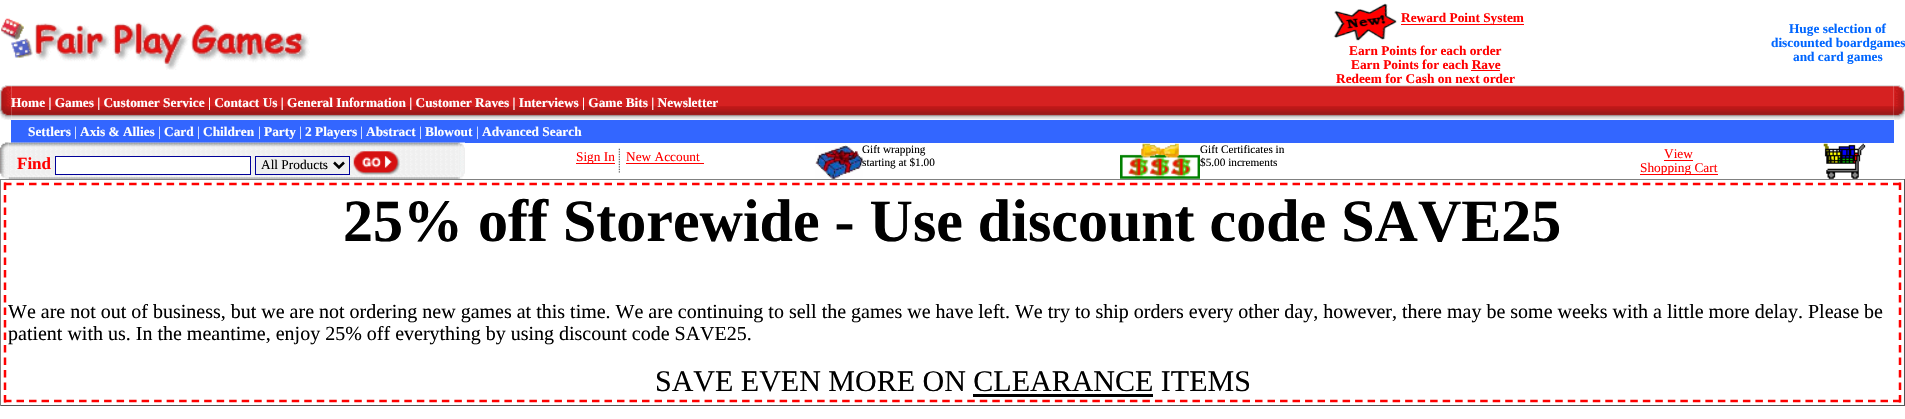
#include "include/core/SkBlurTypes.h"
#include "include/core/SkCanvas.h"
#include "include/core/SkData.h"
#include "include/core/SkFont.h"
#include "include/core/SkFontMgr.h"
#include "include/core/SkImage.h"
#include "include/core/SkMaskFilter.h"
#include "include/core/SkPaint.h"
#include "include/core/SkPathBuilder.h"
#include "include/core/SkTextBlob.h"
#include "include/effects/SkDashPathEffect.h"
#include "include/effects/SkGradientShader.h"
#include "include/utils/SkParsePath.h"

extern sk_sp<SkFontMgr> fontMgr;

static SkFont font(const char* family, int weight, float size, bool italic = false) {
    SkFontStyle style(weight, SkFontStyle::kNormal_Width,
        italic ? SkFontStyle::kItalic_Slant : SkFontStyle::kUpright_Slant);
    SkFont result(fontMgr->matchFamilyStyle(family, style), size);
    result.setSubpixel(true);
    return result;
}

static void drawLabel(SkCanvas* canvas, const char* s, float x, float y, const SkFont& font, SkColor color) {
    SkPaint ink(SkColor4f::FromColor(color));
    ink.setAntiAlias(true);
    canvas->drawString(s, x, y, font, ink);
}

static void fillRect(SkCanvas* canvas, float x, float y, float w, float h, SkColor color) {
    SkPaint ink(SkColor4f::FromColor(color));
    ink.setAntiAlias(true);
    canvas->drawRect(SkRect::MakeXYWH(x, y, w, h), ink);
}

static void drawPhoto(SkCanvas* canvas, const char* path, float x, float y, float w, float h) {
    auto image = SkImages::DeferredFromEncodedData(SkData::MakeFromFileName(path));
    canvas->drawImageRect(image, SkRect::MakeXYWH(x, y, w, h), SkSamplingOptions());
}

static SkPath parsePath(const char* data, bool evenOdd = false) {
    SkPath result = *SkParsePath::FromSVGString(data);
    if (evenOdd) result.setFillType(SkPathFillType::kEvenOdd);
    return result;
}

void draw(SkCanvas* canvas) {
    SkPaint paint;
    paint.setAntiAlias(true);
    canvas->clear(0xFFFFFFFF);
    drawPhoto(canvas, "assets/img1.png", 1, 18, 309, 52);
    drawPhoto(canvas, "assets/img2.png", 1333, 3, 64, 38);
    fillRect(canvas, 1401, 24, 123, 1, 0xFFFF0000);
    SkFont font1 = font("Liberation Serif", 700, 13.33f);
    drawLabel(canvas, "Reward Point System", 1401, 22, font1, 0xFFFF0000);
    drawLabel(canvas, "Earn Points for each order", 1349, 55, font1, 0xFFFF0000);
    drawLabel(canvas, "Earn Points for each Rave", 1351, 69, font1, 0xFFFF0000);
    fillRect(canvas, 1471, 70, 29, 1, 0xFFFF0000);
    drawLabel(canvas, "Redeem for Cash on next order", 1336, 83, font1, 0xFFFF0000);
    drawLabel(canvas, "Huge selection of", 1789, 33, font1, 0xFF0066FF);
    drawLabel(canvas, "discounted boardgames", 1771, 47, font1, 0xFF0066FF);
    drawLabel(canvas, "and card games", 1793, 61, font1, 0xFF0066FF);
    drawPhoto(canvas, "assets/img4.png", 11, 85, 1883, 35);
    drawPhoto(canvas, "assets/img3.png", 0, 85, 12, 35);
    drawLabel(canvas, "Home | Games | Customer Service | Contact Us | General Information | Customer Raves | Interviews | Game Bits | Newsletter", 11, 107, font1, 0xFFFFFFFF);
    drawPhoto(canvas, "assets/img5.png", 1893, 85, 12, 35);
    fillRect(canvas, 11, 120, 1883, 23, 0xFF3366FF);
    drawLabel(canvas, "Settlers", 28, 136, font1, 0xFFFFFFFF);
    SkFont font2 = font("Liberation Serif", 400, 13.33f);
    drawLabel(canvas, "|", 74, 136, font2, 0xFFFFFFFF);
    drawLabel(canvas, "Axis & Allies", 80, 136, font1, 0xFFFFFFFF);
    drawLabel(canvas, "|", 158, 136, font2, 0xFFFFFFFF);
    drawLabel(canvas, "Card", 164, 136, font1, 0xFFFFFFFF);
    drawLabel(canvas, "|", 197, 136, font2, 0xFFFFFFFF);
    drawLabel(canvas, "Children", 203, 136, font1, 0xFFFFFFFF);
    drawLabel(canvas, "|", 258, 136, font2, 0xFFFFFFFF);
    drawLabel(canvas, "Party", 264, 136, font1, 0xFFFFFFFF);
    drawLabel(canvas, "|", 299, 136, font2, 0xFFFFFFFF);
    drawLabel(canvas, "2 Players", 305, 136, font1, 0xFFFFFFFF);
    drawLabel(canvas, "|", 360, 136, font2, 0xFFFFFFFF);
    drawLabel(canvas, "Abstract", 366, 136, font1, 0xFFFFFFFF);
    drawLabel(canvas, "|", 419, 136, font2, 0xFFFFFFFF);
    drawLabel(canvas, "Blowout", 425, 136, font1, 0xFFFFFFFF);
    drawLabel(canvas, "|", 476, 136, font2, 0xFFFFFFFF);
    drawLabel(canvas, "Advanced Search", 482, 136, font1, 0xFFFFFFFF);
    drawPhoto(canvas, "assets/img6.png", 0, 142, 9, 37);
    drawPhoto(canvas, "assets/img7.png", 8, 142, 451, 37);
    SkFont font3 = font("Liberation Serif", 700, 17);
    drawLabel(canvas, "Find", 17, 169, font3, 0xFFFF0000);
    paint.setColor(0xFFFFFFFF);
    canvas->drawRect(SkRect::MakeXYWH(55.5f, 156.5f, 195, 18), paint);
    paint.setStroke(true);
    paint.setStrokeWidth(1);
    paint.setColor(0xFF000099);
    canvas->drawRect(SkRect::MakeXYWH(55.5f, 156.5f, 195, 18), paint);
    fillRect(canvas, 256, 157, 92, 17, 0xFFEFEFEF);
    canvas->drawRect(SkRect::MakeXYWH(255.5f, 156.5f, 94, 18), paint);
    paint.setStrokeWidth(2.5f);
    paint.setColor(0xFF000000);
    canvas->drawPath(parsePath("M334 162.5L339 167.5L344 162.5"), paint);
    drawLabel(canvas, "All Products", 261, 169, font2, 0xFF000000);
    drawPhoto(canvas, "assets/img8.png", 353, 151, 47, 24);
    drawPhoto(canvas, "assets/img9.png", 458, 142, 7, 37);
    fillRect(canvas, 576, 163, 39, 1, 0xFFFF0000);
    drawLabel(canvas, "Sign In", 576, 161, font2, 0xFFFF0000);
    drawPhoto(canvas, "assets/img10.png", 618, 148, 2, 25);
    drawLabel(canvas, "New Account", 626, 161, font2, 0xFFFF0000);
    fillRect(canvas, 626, 163, 78, 1, 0xFFFF0000);
    drawPhoto(canvas, "assets/img11.png", 815, 145, 48, 34);
    SkFont font4 = font("Liberation Serif", 400, 11.25f);
    drawLabel(canvas, "Gift wrapping", 862, 153, font4, 0xFF000000);
    drawLabel(canvas, "starting at $1.00", 862, 166, font4, 0xFF000000);
    drawPhoto(canvas, "assets/img12.png", 1120, 143, 80, 36);
    drawLabel(canvas, "Gift Certificates in", 1200, 153, font4, 0xFF000000);
    drawLabel(canvas, "$5.00 increments", 1200, 166, font4, 0xFF000000);
    drawLabel(canvas, "View", 1664, 158, font2, 0xFFFF0000);
    fillRect(canvas, 1664, 160, 29, 1, 0xFFFF0000);
    fillRect(canvas, 1640, 174, 78, 1, 0xFFFF0000);
    drawLabel(canvas, "Shopping Cart", 1640, 172, font2, 0xFFFF0000);
    drawPhoto(canvas, "assets/img13.png", 1823, 143, 43, 36);
    fillRect(canvas, 0, 179, 1905, 1, 0xFF808080);
    fillRect(canvas, 1904, 179, 1, 227, 0xFF555555);
    fillRect(canvas, 0, 405, 1905, 1, 0xFF555555);
    fillRect(canvas, 0, 179, 1, 227, 0xFF808080);
    paint.setColor(0xFFFF0000);
    paint.setPathEffect(SkDashPathEffect::Make({{7.5f, 5.01f}}, 0));
    canvas->drawPath(parsePath("M4 184H1901"), paint);
    paint.setPathEffect(nullptr);
    paint.setPathEffect(SkDashPathEffect::Make({{7.5f, 5}}, 0));
    canvas->drawPath(parsePath("M1900 182.5V402.5"), paint);
    paint.setPathEffect(nullptr);
    paint.setPathEffect(SkDashPathEffect::Make({{7.5f, 5.01f}}, 0));
    canvas->drawPath(parsePath("M4 401H1901"), paint);
    paint.setPathEffect(nullptr);
    paint.setPathEffect(SkDashPathEffect::Make({{7.5f, 5}}, 0));
    canvas->drawPath(parsePath("M5 182.5V402.5"), paint);
    paint.setPathEffect(nullptr);
    SkFont font5 = font("Liberation Serif", 700, 60);
    drawLabel(canvas, "25% off Storewide - Use discount code SAVE25", 343, 241, font5, 0xFF000000);
    SkFont font6 = font("Liberation Serif", 400, 20);
    drawLabel(canvas, "We are not out of business, but we are not ordering new games at this time. We are continuing to sell the games we have left. We try to ship orders every other day, however, there may be some weeks with a little more delay. Please be", 8, 318, font6, 0xFF000000);
    drawLabel(canvas, "patient with us. In the meantime, enjoy 25% off everything by using discount code SAVE25.", 8, 340, font6, 0xFF000000);
    SkFont font7 = font("Liberation Serif", 400, 30);
    drawLabel(canvas, "SAVE EVEN MORE ON CLEARANCE ITEMS", 655, 391, font7, 0xFF000000);
    fillRect(canvas, 973, 394, 180, 3, 0xFF000000);
}
